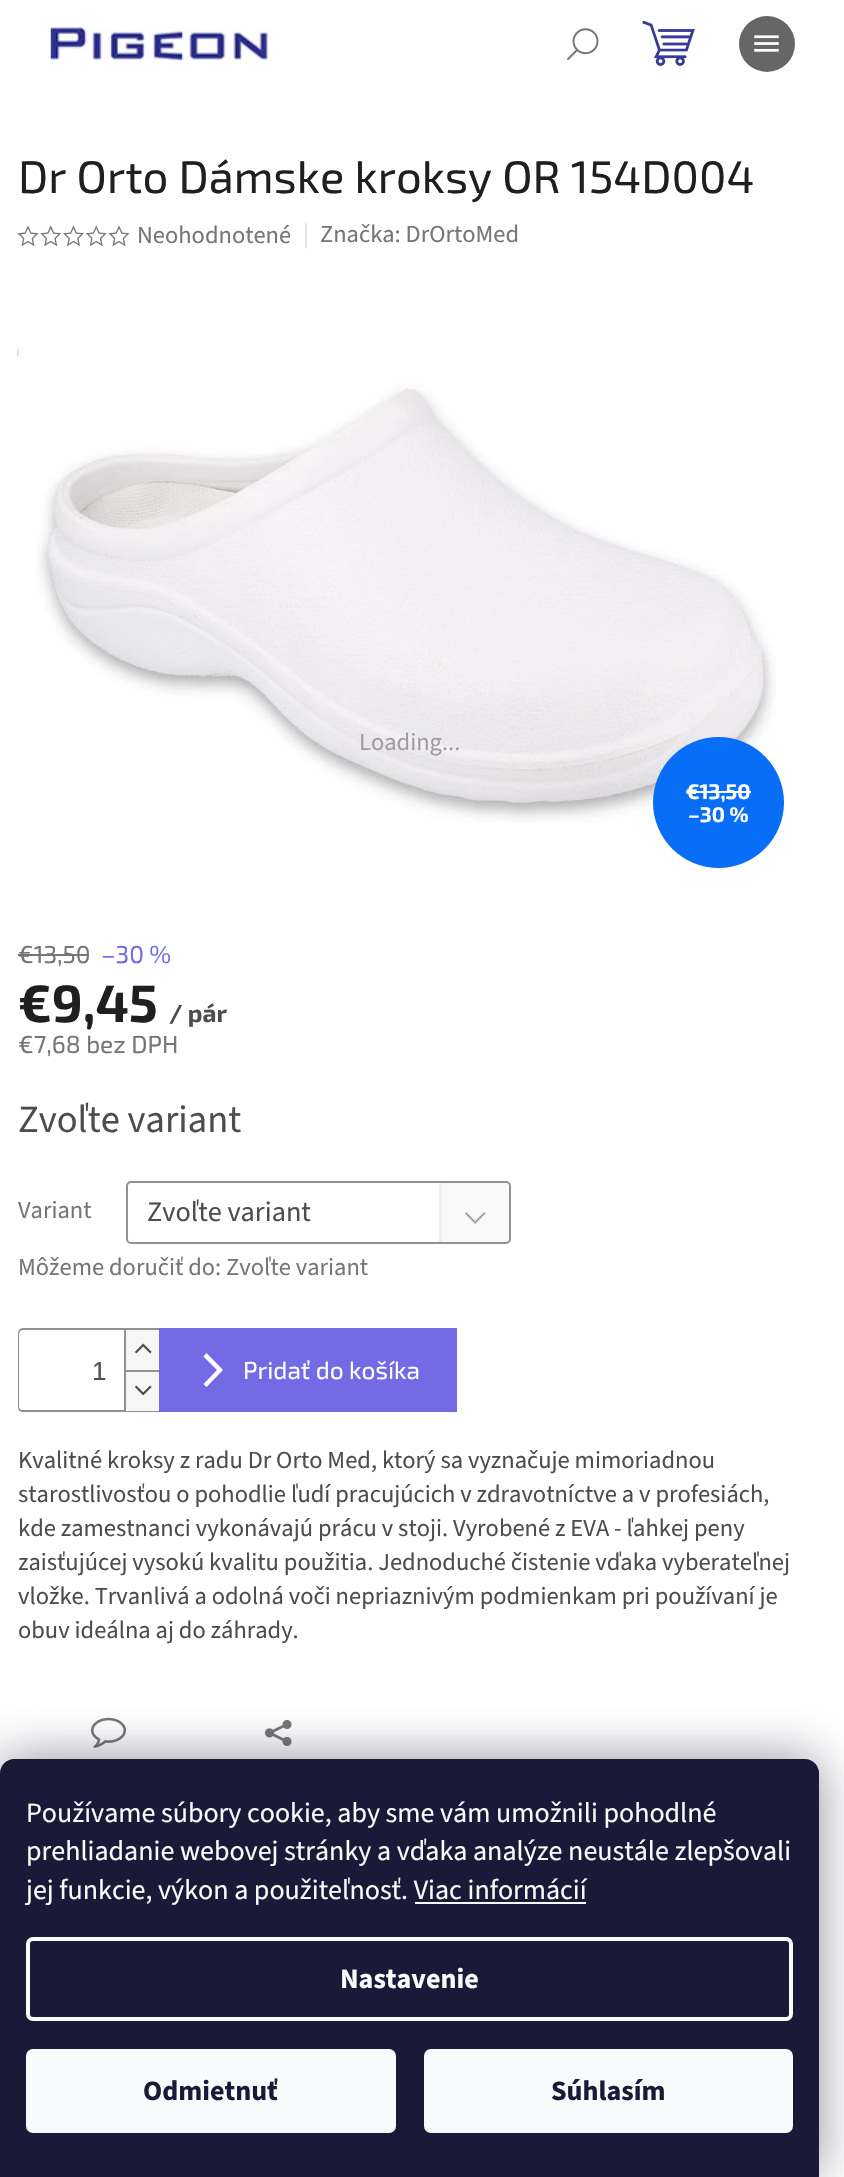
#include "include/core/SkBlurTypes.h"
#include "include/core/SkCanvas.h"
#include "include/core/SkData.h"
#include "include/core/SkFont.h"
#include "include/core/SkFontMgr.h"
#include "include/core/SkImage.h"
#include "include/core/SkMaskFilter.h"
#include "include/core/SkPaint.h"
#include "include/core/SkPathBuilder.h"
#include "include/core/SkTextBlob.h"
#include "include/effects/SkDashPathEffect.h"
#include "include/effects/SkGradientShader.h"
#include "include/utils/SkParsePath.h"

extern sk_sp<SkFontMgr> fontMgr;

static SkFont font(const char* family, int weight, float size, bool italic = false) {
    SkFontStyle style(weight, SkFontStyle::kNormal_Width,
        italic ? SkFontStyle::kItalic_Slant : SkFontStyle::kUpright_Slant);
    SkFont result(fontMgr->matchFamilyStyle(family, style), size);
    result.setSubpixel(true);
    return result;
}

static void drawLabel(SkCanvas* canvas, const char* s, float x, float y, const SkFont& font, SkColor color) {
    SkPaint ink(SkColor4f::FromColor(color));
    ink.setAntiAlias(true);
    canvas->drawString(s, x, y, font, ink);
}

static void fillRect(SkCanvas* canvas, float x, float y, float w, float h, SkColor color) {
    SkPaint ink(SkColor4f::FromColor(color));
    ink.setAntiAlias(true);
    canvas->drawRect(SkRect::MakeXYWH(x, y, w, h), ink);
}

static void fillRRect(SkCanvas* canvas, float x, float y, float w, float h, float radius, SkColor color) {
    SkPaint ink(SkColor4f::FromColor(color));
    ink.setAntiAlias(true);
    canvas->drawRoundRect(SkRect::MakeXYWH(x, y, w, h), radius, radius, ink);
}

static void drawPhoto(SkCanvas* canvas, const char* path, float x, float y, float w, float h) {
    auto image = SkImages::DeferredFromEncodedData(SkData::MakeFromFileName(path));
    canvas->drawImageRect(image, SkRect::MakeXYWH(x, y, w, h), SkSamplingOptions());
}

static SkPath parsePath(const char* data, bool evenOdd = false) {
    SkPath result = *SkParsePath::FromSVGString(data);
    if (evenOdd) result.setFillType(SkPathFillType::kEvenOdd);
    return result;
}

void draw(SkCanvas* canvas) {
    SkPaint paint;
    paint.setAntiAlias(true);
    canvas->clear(0xFFFFFFFF);
    drawPhoto(canvas, "assets/img1.png", 567, 28, 32, 32);
    paint.setColor(0xFF666666);
    canvas->drawCircle(767, 44, 28, paint);
    drawPhoto(canvas, "assets/img2.png", 754, 35, 25, 17);
    drawPhoto(canvas, "assets/img3.png", 50, 27, 219, 34);
    drawPhoto(canvas, "assets/img4.png", 642, 20, 53, 46);
    SkFont font1 = font("Exo 2", 400, 45.5f);
    drawLabel(canvas, "Dr Orto Dámske kroksy OR 154D004", 18, 193, font1, 0xFF1F1F1F);
    drawPhoto(canvas, "assets/img5.png", 17, 225, 22, 22);
    drawPhoto(canvas, "assets/img6.png", 40, 225, 21, 22);
    drawPhoto(canvas, "assets/img7.png", 63, 225, 21, 22);
    drawPhoto(canvas, "assets/img8.png", 86, 225, 21, 22);
    drawPhoto(canvas, "assets/img5.png", 108, 225, 22, 22);
    SkFont font2 = font("Source Sans 3", 400, 24.5f);
    drawLabel(canvas, "Neohodnotené", 137, 243, font2, 0xFF767676);
    drawLabel(canvas, "|", 303, 242, font2, 0xFFDADADA);
    drawLabel(canvas, "Značka: DrOrtoMed", 320, 242, font2, 0xFF767676);
    drawPhoto(canvas, "assets/img9.png", 17, 347, 759, 476);
    drawLabel(canvas, "Loading...", 359, 750, font2, 0xFF9E9C9E);
    paint.setColor(0xFF086DF7);
    canvas->drawCircle(718.5f, 802.5f, 65.5f, paint);
    SkFont font3 = font("Exo 2", 700, 21);
    drawLabel(canvas, "€13,50", 686, 799, font3, 0xFFFFFFFF);
    fillRect(canvas, 686, 791, 65, 2, 0xFFFFFFFF);
    drawLabel(canvas, "–30 %", 688, 822, font3, 0xFFFFFFFF);
    SkFont font4 = font("Exo 2", 400, 24.5f);
    drawLabel(canvas, "€13,50", 18, 963, font4, 0xFF767676);
    fillRect(canvas, 18, 954, 71, 2, 0xFF767676);
    drawLabel(canvas, "–30 %", 101, 963, font4, 0xFF736BE6);
    SkFont font5 = font("Exo 2", 700, 52.5f);
    drawLabel(canvas, "€9,45", 18, 1022, font5, 0xFF1F1F1F);
    SkFont font6 = font("Exo 2", 700, 24.5f);
    drawLabel(canvas, "/ pár", 169, 1022, font6, 0xFF4D4D4D);
    drawLabel(canvas, "€7,68 bez DPH", 18, 1053, font4, 0xFF767676);
    SkFont font7 = font("Source Sans 3", 400, 38.5f);
    drawLabel(canvas, "Zvoľte variant", 18, 1132, font7, 0xFF4D4D4D);
    drawLabel(canvas, "Variant", 18, 1218, font2, 0xFF767676);
    drawPhoto(canvas, "assets/img10.png", 439, 1181, 70, 63);
    paint.setStroke(true);
    paint.setStrokeWidth(2);
    paint.setColor(0xFF919191);
    canvas->drawRoundRect(SkRect::MakeXYWH(127, 1182, 383, 61), 4, 4, paint);
    SkFont font8 = font("Source Sans 3", 400, 28.25f);
    drawLabel(canvas, "Zvoľte variant", 147, 1221, font8, 0xFF4D4D4D);
    drawLabel(canvas, "Môžeme doručiť do: Zvoľte variant", 18, 1275, font2, 0xFF767676);
    paint.setStroke(false);
    canvas->drawPath(parsePath("M23 1328H159V1412H23C20 1412 18 1410 18 1407V1334C18 1331 20 1328 23 1328ZM23 1330H159V1410H23C21 1410 19 1409 19 1407V1334C19 1332 21 1330 23 1330Z", true), paint);
    SkFont font9 = font("Liberation Sans", 400, 26);
    drawLabel(canvas, "1", 92, 1380, font9, 0xFF4D4D4D);
    fillRect(canvas, 126, 1330, 33, 40, 0xFFF6F6F6);
    fillRect(canvas, 124, 1330, 2, 40, 0xFF919191);
    drawPhoto(canvas, "assets/img11.png", 134, 1343, 18, 11);
    fillRect(canvas, 126, 1372, 33, 39, 0xFFF6F6F6);
    fillRect(canvas, 124, 1370, 35, 2, 0xFF919191);
    fillRect(canvas, 124, 1370, 2, 41, 0xFF919191);
    drawPhoto(canvas, "assets/img12.png", 135, 1385, 17, 11);
    fillRect(canvas, 159, 1328, 298, 84, 0xFF736BE6);
    paint.setColor(0xFFFFFFFF);
    canvas->drawPath(parsePath("M206.5 1387L203.5 1384L217 1370L203.5 1356.5L206.5 1353L223 1370Z"), paint);
    drawLabel(canvas, "Pridať do košíka", 243, 1379, font4, 0xFFFFFFFF);
    drawLabel(canvas, "Kvalitné kroksy z radu Dr Orto Med, ktorý sa vyznačuje mimoriadnou", 18, 1468, font2, 0xFF4D4D4D);
    drawLabel(canvas, "starostlivosťou o pohodlie ľudí pracujúcich v zdravotníctve a v profesiách,", 18, 1502, font2, 0xFF4D4D4D);
    drawLabel(canvas, "kde zamestnanci vykonávajú prácu v stoji. Vyrobené z EVA - ľahkej peny", 18, 1536, font2, 0xFF4D4D4D);
    drawLabel(canvas, "zaisťujúcej vysokú kvalitu použitia. Jednoduché čistenie vďaka vyberateľnej", 18, 1570, font2, 0xFF4D4D4D);
    drawLabel(canvas, "vložke. Trvanlivá a odolná voči nepriaznivým podmienkam pri používaní je", 18, 1604, font2, 0xFF4D4D4D);
    drawLabel(canvas, "obuv ideálna aj do záhrady.", 18, 1638, font2, 0xFF4D4D4D);
    drawPhoto(canvas, "assets/img13.png", 91, 1717, 35, 31);
    drawPhoto(canvas, "assets/img14.png", 265, 1720, 27, 26);
    paint.setColor(0x801B1939);
    paint.setMaskFilter(SkMaskFilter::MakeBlur(kNormal_SkBlurStyle, 26));
    canvas->drawRoundRect(SkRect::MakeXYWH(0, 1759, 819, 418), 14, 14, paint);
    paint.setMaskFilter(nullptr);
    paint.setColor(0xFF1A1937);
    canvas->drawPath(parsePath("M14 1759H805C812.5 1759 819 1765.5 819 1773V2177H0V1773C0 1765.5 6.5 1759 14 1759Z"), paint);
    SkFont font10 = font("Source Sans 3", 400, 28);
    drawLabel(canvas, "Používame súbory cookie, aby sme vám umožnili pohodlné", 26, 1822, font10, 0xFFF8FAFB);
    drawLabel(canvas, "prehliadanie webovej stránky a vďaka analýze neustále zlepšovali", 26, 1860, font10, 0xFFF8FAFB);
    drawLabel(canvas, "jej funkcie, výkon a použiteľnosť. Viac informácií", 26, 1899, font10, 0xFFF8FAFB);
    fillRect(canvas, 415, 1902, 171, 2, 0xFFF8FAFB);
    paint.setStroke(true);
    paint.setStrokeWidth(4);
    paint.setColor(0xFFF8FAFB);
    canvas->drawRoundRect(SkRect::MakeXYWH(28, 1939, 763, 80), 5, 5, paint);
    SkFont font11 = font("Source Sans 3", 700, 28);
    drawLabel(canvas, "Nastavenie", 340, 1988, font11, 0xFFF8FAFB);
    fillRRect(canvas, 26, 2049, 370, 84, 7, 0xFFF8FAFB);
    drawLabel(canvas, "Odmietnuť", 143, 2100, font11, 0xFF1A1937);
    fillRRect(canvas, 424, 2049, 369, 84, 7, 0xFFF8FAFB);
    drawLabel(canvas, "Súhlasím", 551, 2100, font11, 0xFF1A1937);
}
